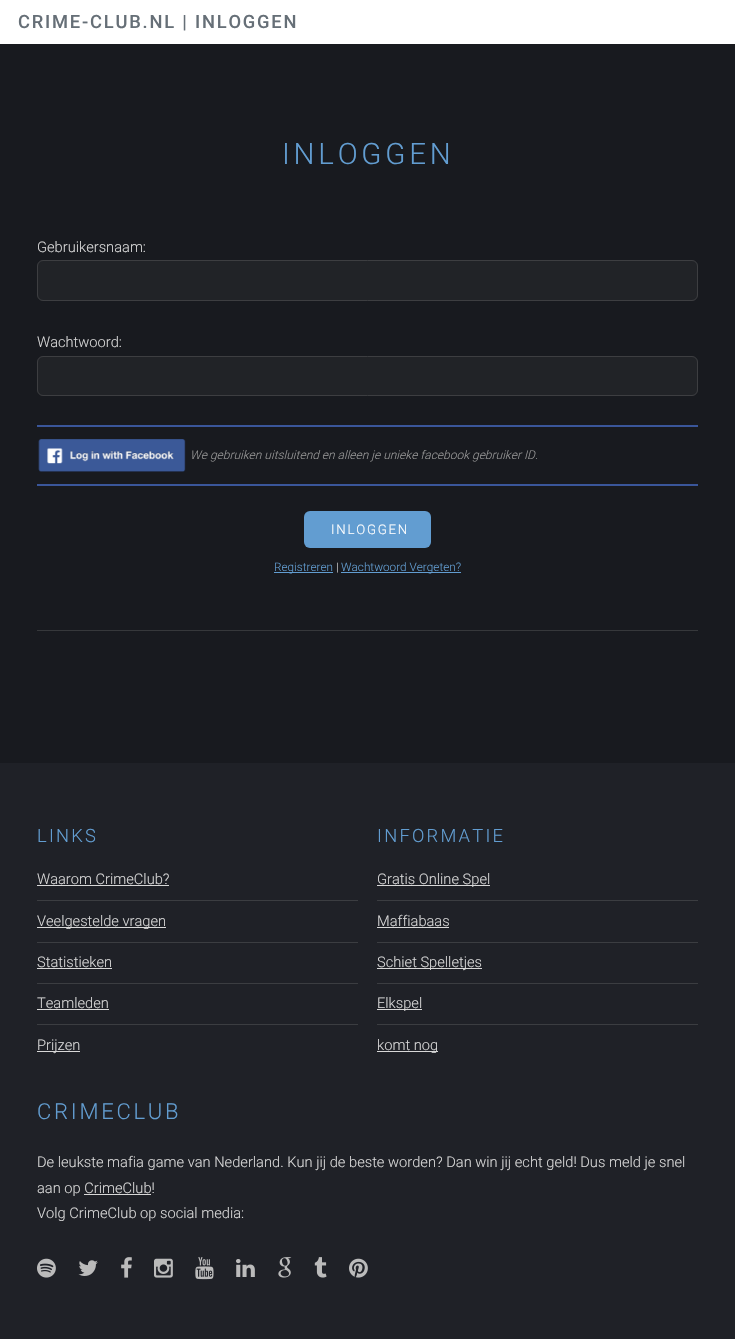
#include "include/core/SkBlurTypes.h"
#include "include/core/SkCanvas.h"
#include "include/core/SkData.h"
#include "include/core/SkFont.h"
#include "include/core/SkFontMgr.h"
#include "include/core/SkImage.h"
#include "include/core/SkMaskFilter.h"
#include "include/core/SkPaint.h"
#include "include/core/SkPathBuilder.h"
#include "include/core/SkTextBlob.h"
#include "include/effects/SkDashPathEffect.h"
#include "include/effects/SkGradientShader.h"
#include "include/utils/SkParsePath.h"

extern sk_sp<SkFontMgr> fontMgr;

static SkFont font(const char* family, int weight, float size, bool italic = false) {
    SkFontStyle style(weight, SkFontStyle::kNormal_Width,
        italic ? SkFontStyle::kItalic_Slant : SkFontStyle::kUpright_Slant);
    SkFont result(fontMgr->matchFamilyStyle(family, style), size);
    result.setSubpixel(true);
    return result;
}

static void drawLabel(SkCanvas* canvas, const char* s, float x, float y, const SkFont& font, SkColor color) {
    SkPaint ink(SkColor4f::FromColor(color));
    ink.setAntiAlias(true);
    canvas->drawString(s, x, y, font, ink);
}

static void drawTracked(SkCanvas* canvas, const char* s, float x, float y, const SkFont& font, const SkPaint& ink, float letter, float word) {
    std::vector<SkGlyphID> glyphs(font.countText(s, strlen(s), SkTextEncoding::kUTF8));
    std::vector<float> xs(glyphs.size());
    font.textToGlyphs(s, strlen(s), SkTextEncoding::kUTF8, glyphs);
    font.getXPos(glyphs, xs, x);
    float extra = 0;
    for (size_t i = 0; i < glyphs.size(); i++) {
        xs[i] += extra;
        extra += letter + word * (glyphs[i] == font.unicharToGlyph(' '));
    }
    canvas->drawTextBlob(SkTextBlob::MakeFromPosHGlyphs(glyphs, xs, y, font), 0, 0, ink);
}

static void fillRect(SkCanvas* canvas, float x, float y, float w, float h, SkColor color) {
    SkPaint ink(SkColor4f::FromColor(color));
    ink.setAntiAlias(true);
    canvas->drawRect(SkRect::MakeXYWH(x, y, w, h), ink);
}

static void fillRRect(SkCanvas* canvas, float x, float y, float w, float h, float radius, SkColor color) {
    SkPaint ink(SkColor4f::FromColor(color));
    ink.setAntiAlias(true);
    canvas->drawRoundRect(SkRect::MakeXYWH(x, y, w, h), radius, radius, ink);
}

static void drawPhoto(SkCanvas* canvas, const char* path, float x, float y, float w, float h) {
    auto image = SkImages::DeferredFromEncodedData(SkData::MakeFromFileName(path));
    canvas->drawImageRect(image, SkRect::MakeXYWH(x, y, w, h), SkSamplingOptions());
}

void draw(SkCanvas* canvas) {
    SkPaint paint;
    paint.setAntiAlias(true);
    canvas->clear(0xFF181A1F);
    fillRect(canvas, 0, 0, 735, 44, 0xFFFFFFFF);
    SkFont font1 = font("Roboto", 500, 18.3f);
    paint.setColor(0xFF666F77);
    drawTracked(canvas, "CRIME-CLUB.NL | INLOGGEN", 18, 28, font1, paint, 1.8f, 0);
    SkFont font2 = font("Roboto", 300, 29.5f);
    paint.setColor(0xFF629DD1);
    drawTracked(canvas, "INLOGGEN", 282, 164, font2, paint, 3.75f, 0);
    SkFont font3 = font("Roboto", 300, 14.65f);
    drawLabel(canvas, "Gebruikersnaam:", 37, 252, font3, 0xFFD8D8D8);
    paint.setColor(0xFF212327);
    canvas->drawRoundRect(SkRect::MakeXYWH(37.5f, 260.5f, 660, 40), 5.5f, 5.5f, paint);
    paint.setStroke(true);
    paint.setStrokeWidth(1);
    paint.setColor(0xFF3D3E41);
    canvas->drawRoundRect(SkRect::MakeXYWH(37.5f, 260.5f, 660, 40), 5.5f, 5.5f, paint);
    drawLabel(canvas, "Wachtwoord:", 37, 347, font3, 0xFFD8D8D8);
    paint.setStroke(false);
    paint.setColor(0xFF212327);
    canvas->drawRoundRect(SkRect::MakeXYWH(37.5f, 356.5f, 660, 39), 5.5f, 5.5f, paint);
    paint.setStroke(true);
    paint.setColor(0xFF3D3E41);
    canvas->drawRoundRect(SkRect::MakeXYWH(37.5f, 356.5f, 660, 39), 5.5f, 5.5f, paint);
    fillRect(canvas, 37, 425, 661, 2, 0xFF3A569A);
    fillRect(canvas, 37, 484, 661, 2, 0xFF3A569A);
    drawPhoto(canvas, "assets/img1.png", 38, 439, 148, 33);
    SkFont font4 = font("Roboto", 300, 12, true);
    drawLabel(canvas, "We gebruiken uitsluitend en alleen je unieke facebook gebruiker ID.", 190, 459, font4, 0xFF969696);
    fillRRect(canvas, 304, 511, 127, 37, 6, 0xFF629DD1);
    SkFont font5 = font("Roboto", 300, 13.25f);
    paint.setStroke(false);
    paint.setColor(0xFFFFFFFF);
    drawTracked(canvas, "INLOGGEN", 331, 534, font5, paint, 1.75f, 0);
    fillRect(canvas, 274, 572, 59, 1, 0xFF629DD1);
    SkFont font6 = font("Roboto", 300, 11.75f);
    drawLabel(canvas, "Registreren", 274, 571, font6, 0xFF629DD1);
    drawLabel(canvas, "|", 336, 571, font6, 0xFFD8D8D8);
    fillRect(canvas, 341, 572, 120, 1, 0xFF629DD1);
    drawLabel(canvas, "Wachtwoord Vergeten?", 341, 571, font6, 0xFF629DD1);
    fillRect(canvas, 37, 630, 661, 1, 0xFF36383B);
    fillRect(canvas, 0, 763, 735, 576, 0xFF1F2127);
    SkFont font7 = font("Roboto", 300, 18.3f);
    paint.setColor(0xFF629DD1);
    drawTracked(canvas, "LINKS", 37, 842, font7, paint, 2.25f, 0);
    drawLabel(canvas, "Waarom CrimeClub?", 37, 884, font3, 0xFFD8D8D8);
    fillRect(canvas, 37, 885, 132, 1, 0xFFD8D8D8);
    fillRect(canvas, 37, 900, 321, 1, 0xFF3B3D41);
    fillRect(canvas, 37, 927, 129, 1, 0xFFD8D8D8);
    drawLabel(canvas, "Veelgestelde vragen", 37, 926, font3, 0xFFD8D8D8);
    fillRect(canvas, 37, 942, 321, 1, 0xFF3B3D41);
    drawLabel(canvas, "Statistieken", 37, 967, font3, 0xFFD8D8D8);
    fillRect(canvas, 37, 968, 75, 1, 0xFFD8D8D8);
    fillRect(canvas, 37, 983, 321, 1, 0xFF3B3D41);
    drawLabel(canvas, "Teamleden", 37, 1008, font3, 0xFFD8D8D8);
    fillRect(canvas, 37, 1009, 72, 1, 0xFFD8D8D8);
    fillRect(canvas, 37, 1024, 321, 1, 0xFF3B3D41);
    fillRect(canvas, 37, 1051, 43, 1, 0xFFD8D8D8);
    drawLabel(canvas, "Prijzen", 37, 1050, font3, 0xFFD8D8D8);
    drawTracked(canvas, "INFORMATIE", 377, 842, font7, paint, 2.25f, 0);
    fillRect(canvas, 377, 885, 113, 1, 0xFFD8D8D8);
    drawLabel(canvas, "Gratis Online Spel", 377, 884, font3, 0xFFD8D8D8);
    fillRect(canvas, 377, 900, 321, 1, 0xFF3B3D41);
    drawLabel(canvas, "Maffiabaas", 377, 926, font3, 0xFFD8D8D8);
    fillRect(canvas, 377, 927, 72, 1, 0xFFD8D8D8);
    fillRect(canvas, 377, 942, 321, 1, 0xFF3B3D41);
    fillRect(canvas, 377, 968, 105, 1, 0xFFD8D8D8);
    drawLabel(canvas, "Schiet Spelletjes", 377, 967, font3, 0xFFD8D8D8);
    fillRect(canvas, 377, 983, 321, 1, 0xFF3B3D41);
    fillRect(canvas, 377, 1009, 45, 1, 0xFFD8D8D8);
    drawLabel(canvas, "Elkspel", 377, 1008, font3, 0xFFD8D8D8);
    fillRect(canvas, 377, 1024, 321, 1, 0xFF3B3D41);
    fillRect(canvas, 377, 1051, 61, 1, 0xFFD8D8D8);
    drawLabel(canvas, "komt nog", 377, 1050, font3, 0xFFD8D8D8);
    SkFont font8 = font("Roboto", 300, 22);
    drawTracked(canvas, "CRIMECLUB", 37, 1119, font8, paint, 2.75f, 0);
    drawLabel(canvas, "De leukste mafia game van Nederland. Kun jij de beste worden? Dan win jij echt geld! Dus meld je snel", 37, 1167, font3, 0xFFD8D8D8);
    drawLabel(canvas, "aan op CrimeClub!", 37, 1193, font3, 0xFFD8D8D8);
    fillRect(canvas, 84, 1194, 67, 1, 0xFFD8D8D8);
    drawLabel(canvas, "Volg CrimeClub op social media:", 37, 1218, font3, 0xFFD8D8D8);
    drawPhoto(canvas, "assets/img2.png", 37, 1258, 19, 20);
    drawPhoto(canvas, "assets/img3.png", 78, 1260, 20, 16);
    drawPhoto(canvas, "assets/img4.png", 121, 1257, 11, 21);
    drawPhoto(canvas, "assets/img5.png", 154, 1258, 19, 20);
    drawPhoto(canvas, "assets/img6.png", 195, 1257, 19, 23);
    drawPhoto(canvas, "assets/img7.png", 236, 1259, 19, 18);
    drawPhoto(canvas, "assets/img8.png", 278, 1257, 14, 21);
    drawPhoto(canvas, "assets/img9.png", 314, 1257, 13, 21);
    drawPhoto(canvas, "assets/img10.png", 349, 1258, 19, 20);
}
